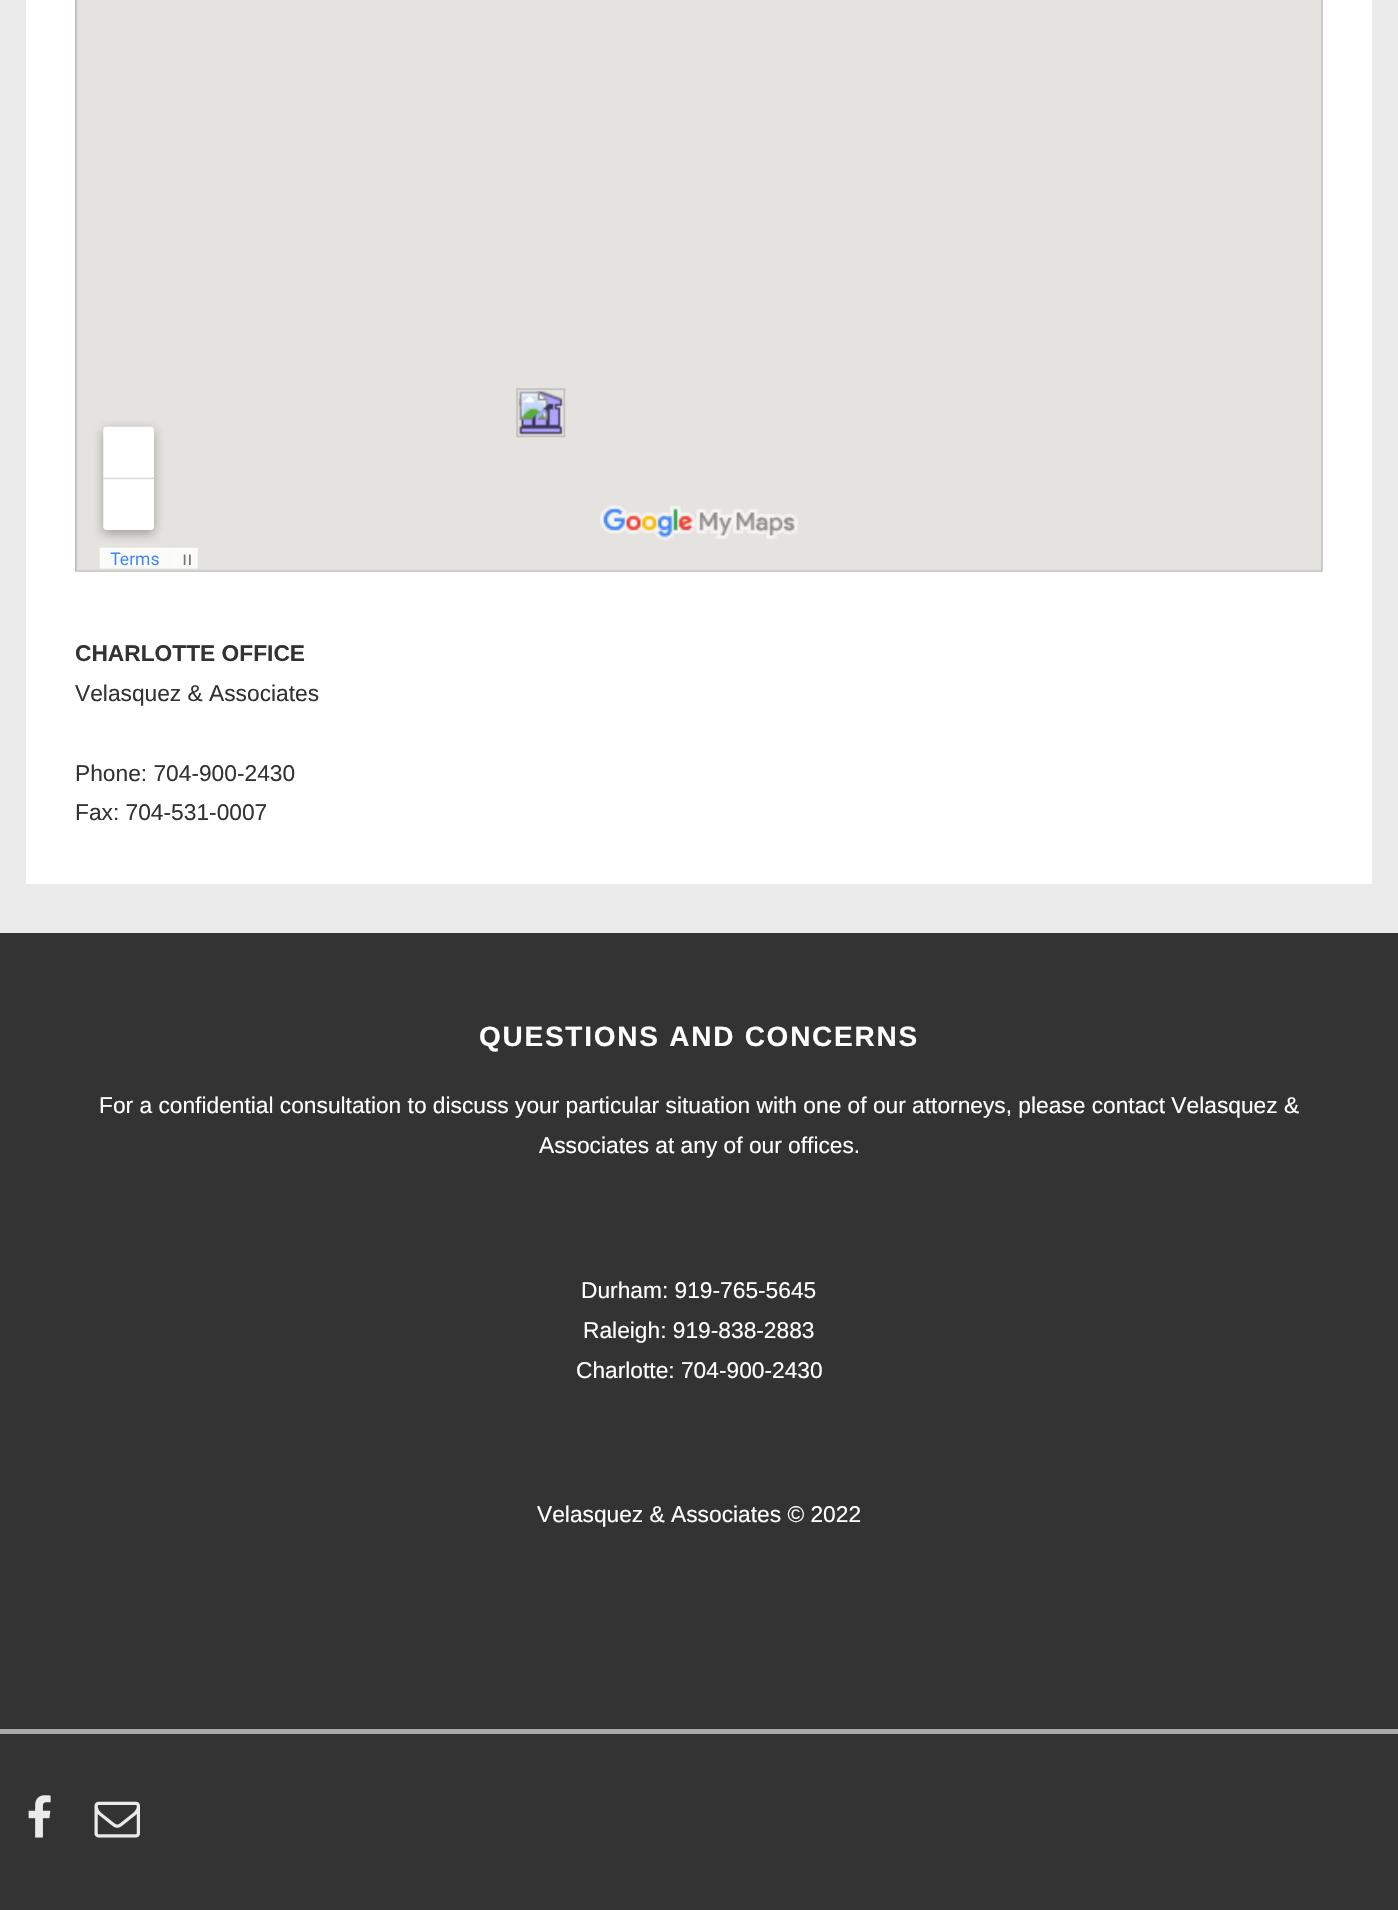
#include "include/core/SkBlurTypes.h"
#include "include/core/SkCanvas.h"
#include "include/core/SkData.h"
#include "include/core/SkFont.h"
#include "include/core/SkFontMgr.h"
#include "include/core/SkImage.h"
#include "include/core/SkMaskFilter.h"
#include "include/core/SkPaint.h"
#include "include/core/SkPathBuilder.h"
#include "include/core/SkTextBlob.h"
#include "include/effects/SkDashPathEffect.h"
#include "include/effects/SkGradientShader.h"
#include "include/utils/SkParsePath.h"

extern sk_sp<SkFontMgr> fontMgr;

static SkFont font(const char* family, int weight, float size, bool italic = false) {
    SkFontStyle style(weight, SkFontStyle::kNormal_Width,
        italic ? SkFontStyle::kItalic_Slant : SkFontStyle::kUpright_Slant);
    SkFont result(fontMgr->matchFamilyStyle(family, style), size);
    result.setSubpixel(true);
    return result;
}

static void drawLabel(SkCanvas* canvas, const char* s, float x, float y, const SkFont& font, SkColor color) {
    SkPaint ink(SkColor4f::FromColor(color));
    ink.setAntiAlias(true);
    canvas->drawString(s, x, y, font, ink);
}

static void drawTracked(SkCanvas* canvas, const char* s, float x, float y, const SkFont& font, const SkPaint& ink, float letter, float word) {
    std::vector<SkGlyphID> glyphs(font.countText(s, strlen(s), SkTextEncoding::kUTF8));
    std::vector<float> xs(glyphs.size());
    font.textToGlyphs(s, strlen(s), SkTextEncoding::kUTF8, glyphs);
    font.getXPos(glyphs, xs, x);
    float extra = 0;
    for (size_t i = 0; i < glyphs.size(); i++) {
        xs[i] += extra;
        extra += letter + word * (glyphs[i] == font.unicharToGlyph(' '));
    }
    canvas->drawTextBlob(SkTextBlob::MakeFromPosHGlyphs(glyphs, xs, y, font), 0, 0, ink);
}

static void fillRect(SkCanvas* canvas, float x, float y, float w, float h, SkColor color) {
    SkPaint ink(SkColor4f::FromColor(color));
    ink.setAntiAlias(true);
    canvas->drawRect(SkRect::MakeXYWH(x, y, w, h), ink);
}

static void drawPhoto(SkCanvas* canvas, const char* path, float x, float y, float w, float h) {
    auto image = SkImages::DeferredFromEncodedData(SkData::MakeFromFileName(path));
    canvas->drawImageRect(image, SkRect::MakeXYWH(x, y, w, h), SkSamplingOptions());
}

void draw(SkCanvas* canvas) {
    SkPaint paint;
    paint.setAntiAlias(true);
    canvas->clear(0xFFEAEAEA);
    fillRect(canvas, 26, 0, 1346, 884, 0xFFFFFFFF);
    drawPhoto(canvas, "assets/img1.png", 75, 0, 1248, 572);
    SkFont font1 = font("Liberation Sans", 700, 22.75f);
    drawLabel(canvas, "CHARLOTTE OFFICE", 75, 661, font1, 0xFF333333);
    SkFont font2 = font("Liberation Sans", 400, 22.75f);
    drawLabel(canvas, "Velasquez & Associates", 75, 701, font2, 0xFF333333);
    drawLabel(canvas, "Phone: 704-900-2430", 75, 781, font2, 0xFF333333);
    drawLabel(canvas, "Fax: 704-531-0007", 75, 820, font2, 0xFF333333);
    fillRect(canvas, 0, 933, 1398, 977, 0xFF333333);
    SkFont font3 = font("Liberation Sans", 700, 28);
    paint.setColor(0xFFFFFFFF);
    drawTracked(canvas, "QUESTIONS AND CONCERNS", 479, 1046, font3, paint, 1.75f, 0);
    drawLabel(canvas, "For a confidential consultation to discuss your particular situation with one of our attorneys, please contact Velasquez &", 99, 1113, font2, 0xFFFFFFFF);
    drawLabel(canvas, "Associates at any of our offices.", 539, 1153, font2, 0xFFFFFFFF);
    drawLabel(canvas, "Durham: 919-765-5645", 581, 1298, font2, 0xFFFFFFFF);
    drawLabel(canvas, "Raleigh: 919-838-2883", 583, 1338, font2, 0xFFFFFFFF);
    drawLabel(canvas, "Charlotte: 704-900-2430", 576, 1378, font2, 0xFFFFFFFF);
    drawLabel(canvas, "Velasquez & Associates © 2022", 537, 1522, font2, 0xFFFFFFFF);
    fillRect(canvas, 0, 1729, 1398, 5, 0xFFAAAAAA);
    drawPhoto(canvas, "assets/img2.png", 28, 1795, 23, 43);
    drawPhoto(canvas, "assets/img3.png", 94, 1801, 46, 37);
}
